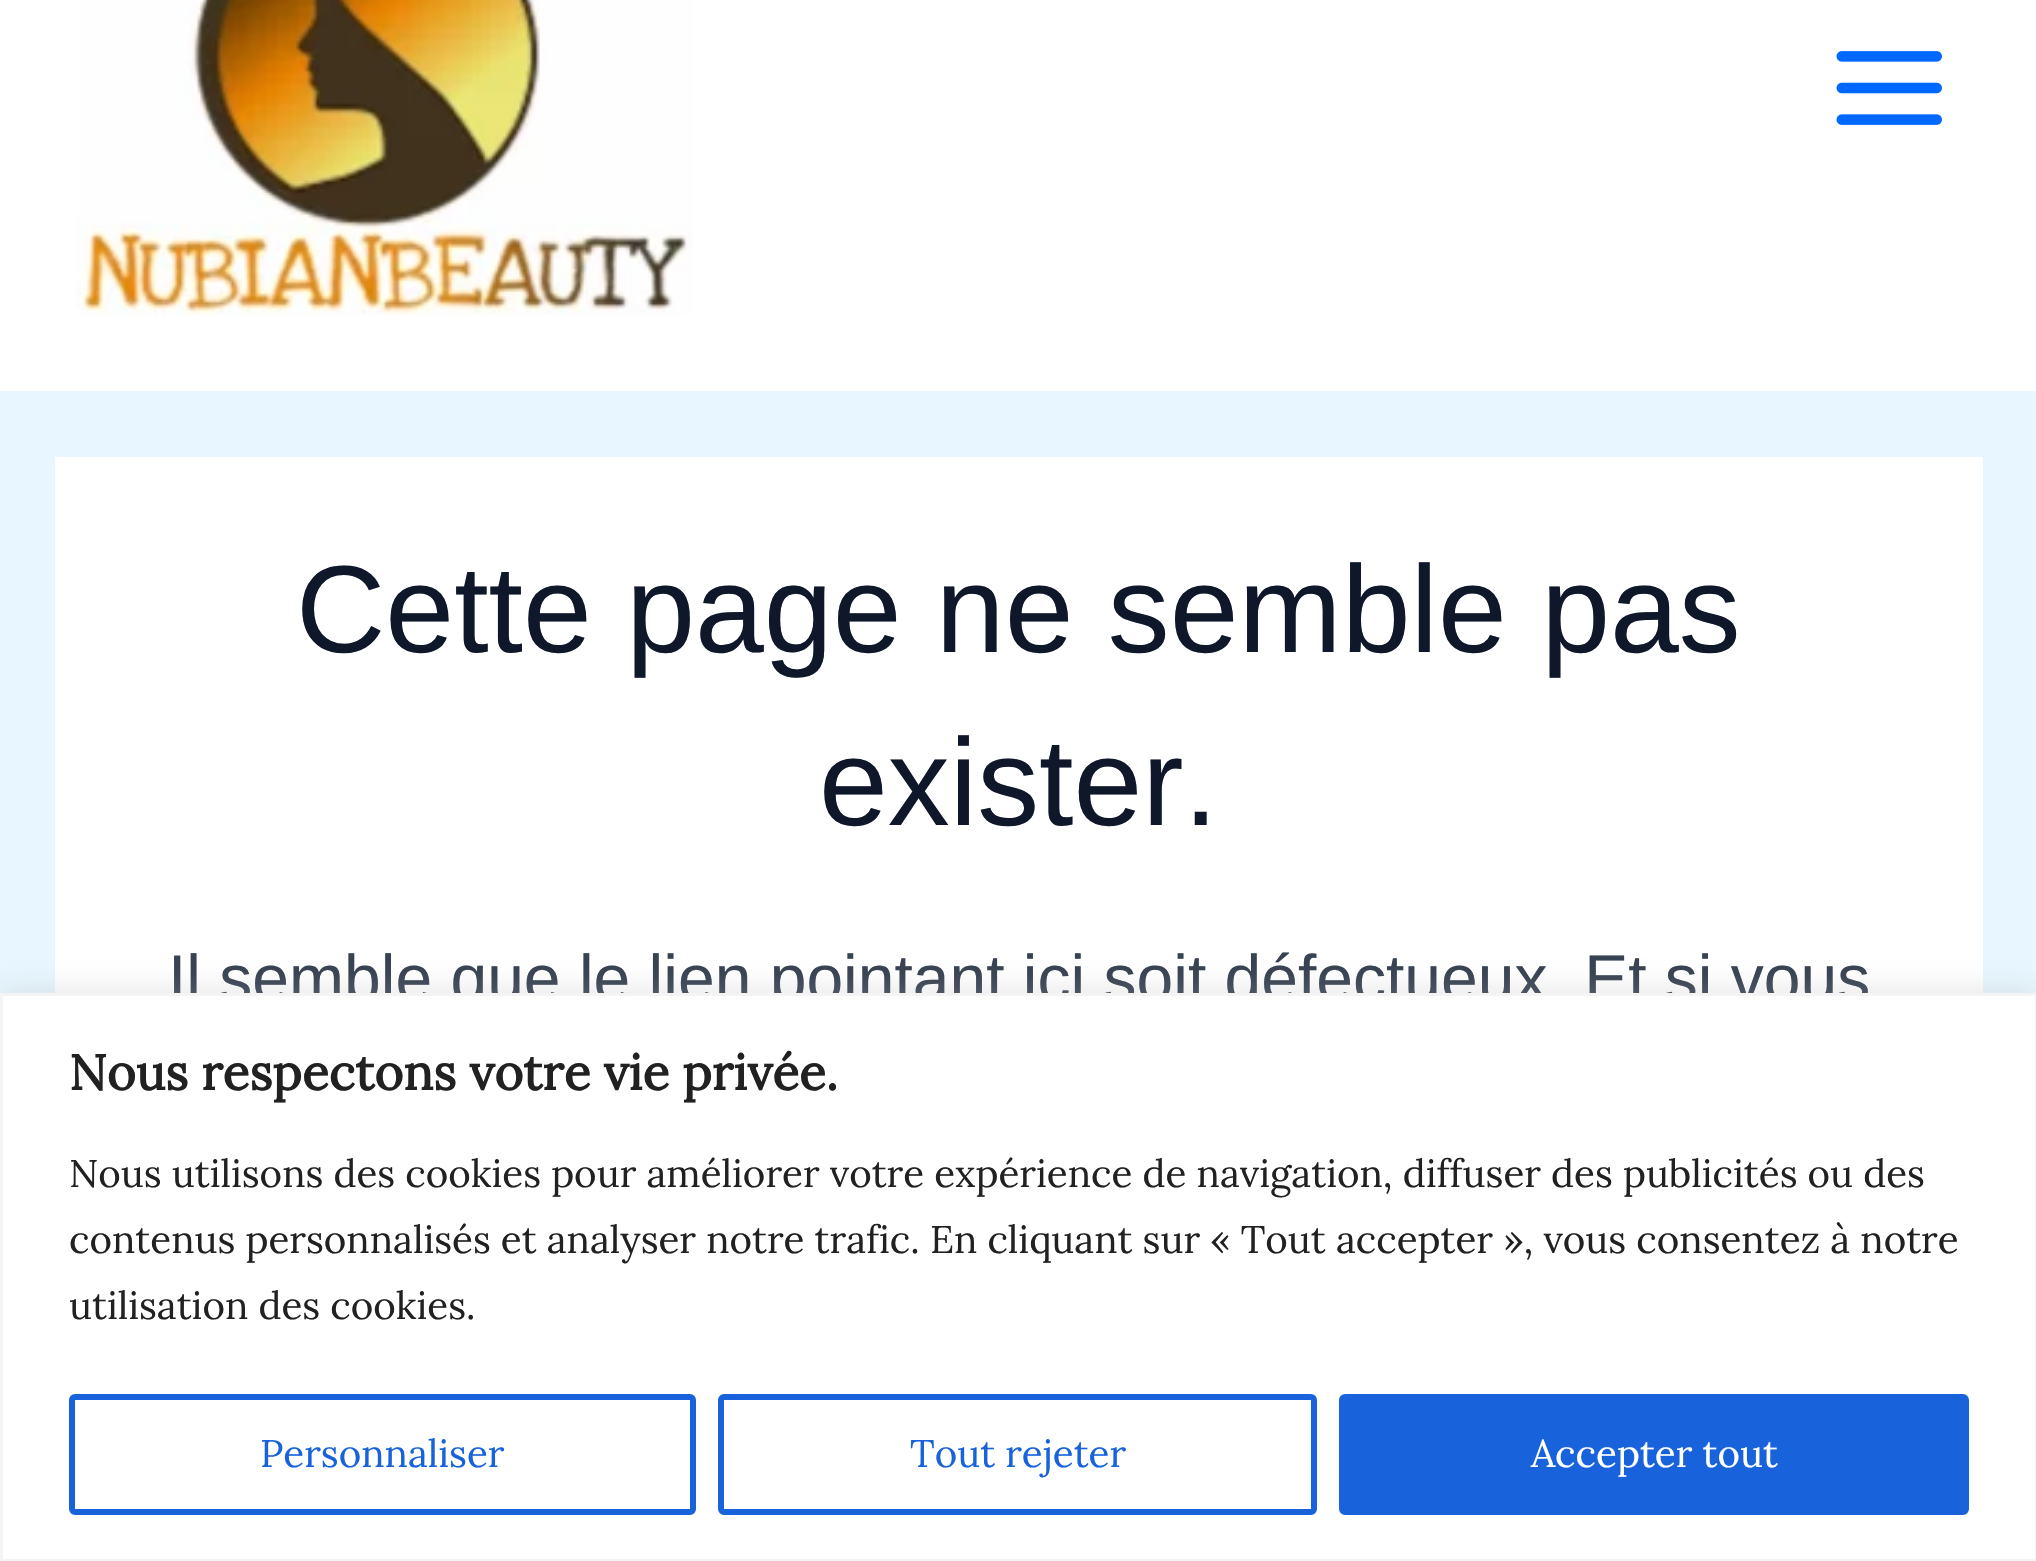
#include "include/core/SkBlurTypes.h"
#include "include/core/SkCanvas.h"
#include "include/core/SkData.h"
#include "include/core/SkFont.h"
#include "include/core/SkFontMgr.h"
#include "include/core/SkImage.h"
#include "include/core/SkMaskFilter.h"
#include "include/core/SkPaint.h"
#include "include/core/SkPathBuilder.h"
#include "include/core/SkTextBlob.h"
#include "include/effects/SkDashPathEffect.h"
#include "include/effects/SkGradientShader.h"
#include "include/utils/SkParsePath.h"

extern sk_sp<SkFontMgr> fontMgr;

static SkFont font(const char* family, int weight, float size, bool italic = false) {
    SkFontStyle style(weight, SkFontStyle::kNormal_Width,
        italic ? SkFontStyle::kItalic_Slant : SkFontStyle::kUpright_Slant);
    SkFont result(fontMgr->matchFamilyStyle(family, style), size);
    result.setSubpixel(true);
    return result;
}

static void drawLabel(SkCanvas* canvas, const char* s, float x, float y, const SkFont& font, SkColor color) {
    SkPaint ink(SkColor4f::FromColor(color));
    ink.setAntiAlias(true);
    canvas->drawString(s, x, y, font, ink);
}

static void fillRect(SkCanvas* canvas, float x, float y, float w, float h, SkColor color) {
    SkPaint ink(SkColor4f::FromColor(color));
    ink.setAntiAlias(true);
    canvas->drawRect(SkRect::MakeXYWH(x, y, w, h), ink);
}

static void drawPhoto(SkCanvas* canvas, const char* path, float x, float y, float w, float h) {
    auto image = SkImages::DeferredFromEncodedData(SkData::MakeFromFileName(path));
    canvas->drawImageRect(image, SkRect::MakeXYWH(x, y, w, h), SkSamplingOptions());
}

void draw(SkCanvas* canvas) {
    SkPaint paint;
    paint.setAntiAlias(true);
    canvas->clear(0xFFE7F6FF);
    fillRect(canvas, 0, 0, 2036, 391, 0xFFFFFFFF);
    drawPhoto(canvas, "assets/img1.png", 76, 0, 617, 316);
    drawPhoto(canvas, "assets/img2.png", 1836, 51, 106, 74);
    fillRect(canvas, 55, 457, 1928, 536, 0xFFFFFFFF);
    SkFont font1 = font("Liberation Sans", 400, 123.75f);
    drawLabel(canvas, "Cette page ne semble pas", 296, 652, font1, 0xFF0F172A);
    drawLabel(canvas, "exister.", 819, 825, font1, 0xFF0F172A);
    SkFont font2 = font("Liberation Sans", 400, 66);
    drawLabel(canvas, "Il semble que le lien pointant ici soit défectueux. Et si vous", 168, 1001, font2, 0xFF364151);
    paint.setColor(0x4DACABAB);
    paint.setMaskFilter(SkMaskFilter::MakeBlur(kNormal_SkBlurStyle, 14));
    canvas->drawRect(SkRect::MakeXYWH(0, 990, 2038, 569), paint);
    paint.setMaskFilter(nullptr);
    paint.setColor(0xFFFFFFFF);
    canvas->drawRect(SkRect::MakeXYWH(1.5f, 994.5f, 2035, 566), paint);
    paint.setStroke(true);
    paint.setStrokeWidth(3);
    paint.setColor(0xFFF4F4F4);
    canvas->drawRect(SkRect::MakeXYWH(1.5f, 994.5f, 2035, 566), paint);
    SkFont font3 = font("Lora", 700, 49.5f);
    drawLabel(canvas, "Nous respectons votre vie privée.", 69, 1090, font3, 0xFF212121);
    SkFont font4 = font("Lora", 400, 38.5f);
    drawLabel(canvas, "Nous utilisons des cookies pour améliorer votre expérience de navigation, diffuser des publicités ou des", 69, 1187, font4, 0xFF212121);
    drawLabel(canvas, "contenus personnalisés et analyser notre trafic. En cliquant sur « Tout accepter », vous consentez à notre", 69, 1253, font4, 0xFF212121);
    drawLabel(canvas, "utilisation des cookies.", 69, 1319, font4, 0xFF212121);
    paint.setStrokeWidth(6);
    paint.setColor(0xFF1863DC);
    canvas->drawRoundRect(SkRect::MakeXYWH(72, 1397, 621, 115), 3, 3, paint);
    drawLabel(canvas, "Personnaliser", 260, 1467, font4, 0xFF1863DC);
    canvas->drawRoundRect(SkRect::MakeXYWH(721, 1397, 593, 115), 3, 3, paint);
    drawLabel(canvas, "Tout rejeter", 910, 1467, font4, 0xFF1863DC);
    paint.setStroke(false);
    canvas->drawRoundRect(SkRect::MakeXYWH(1342, 1397, 624, 115), 3, 3, paint);
    paint.setStroke(true);
    canvas->drawRoundRect(SkRect::MakeXYWH(1342, 1397, 624, 115), 3, 3, paint);
    drawLabel(canvas, "Accepter tout", 1531, 1467, font4, 0xFFFFFFFF);
}
